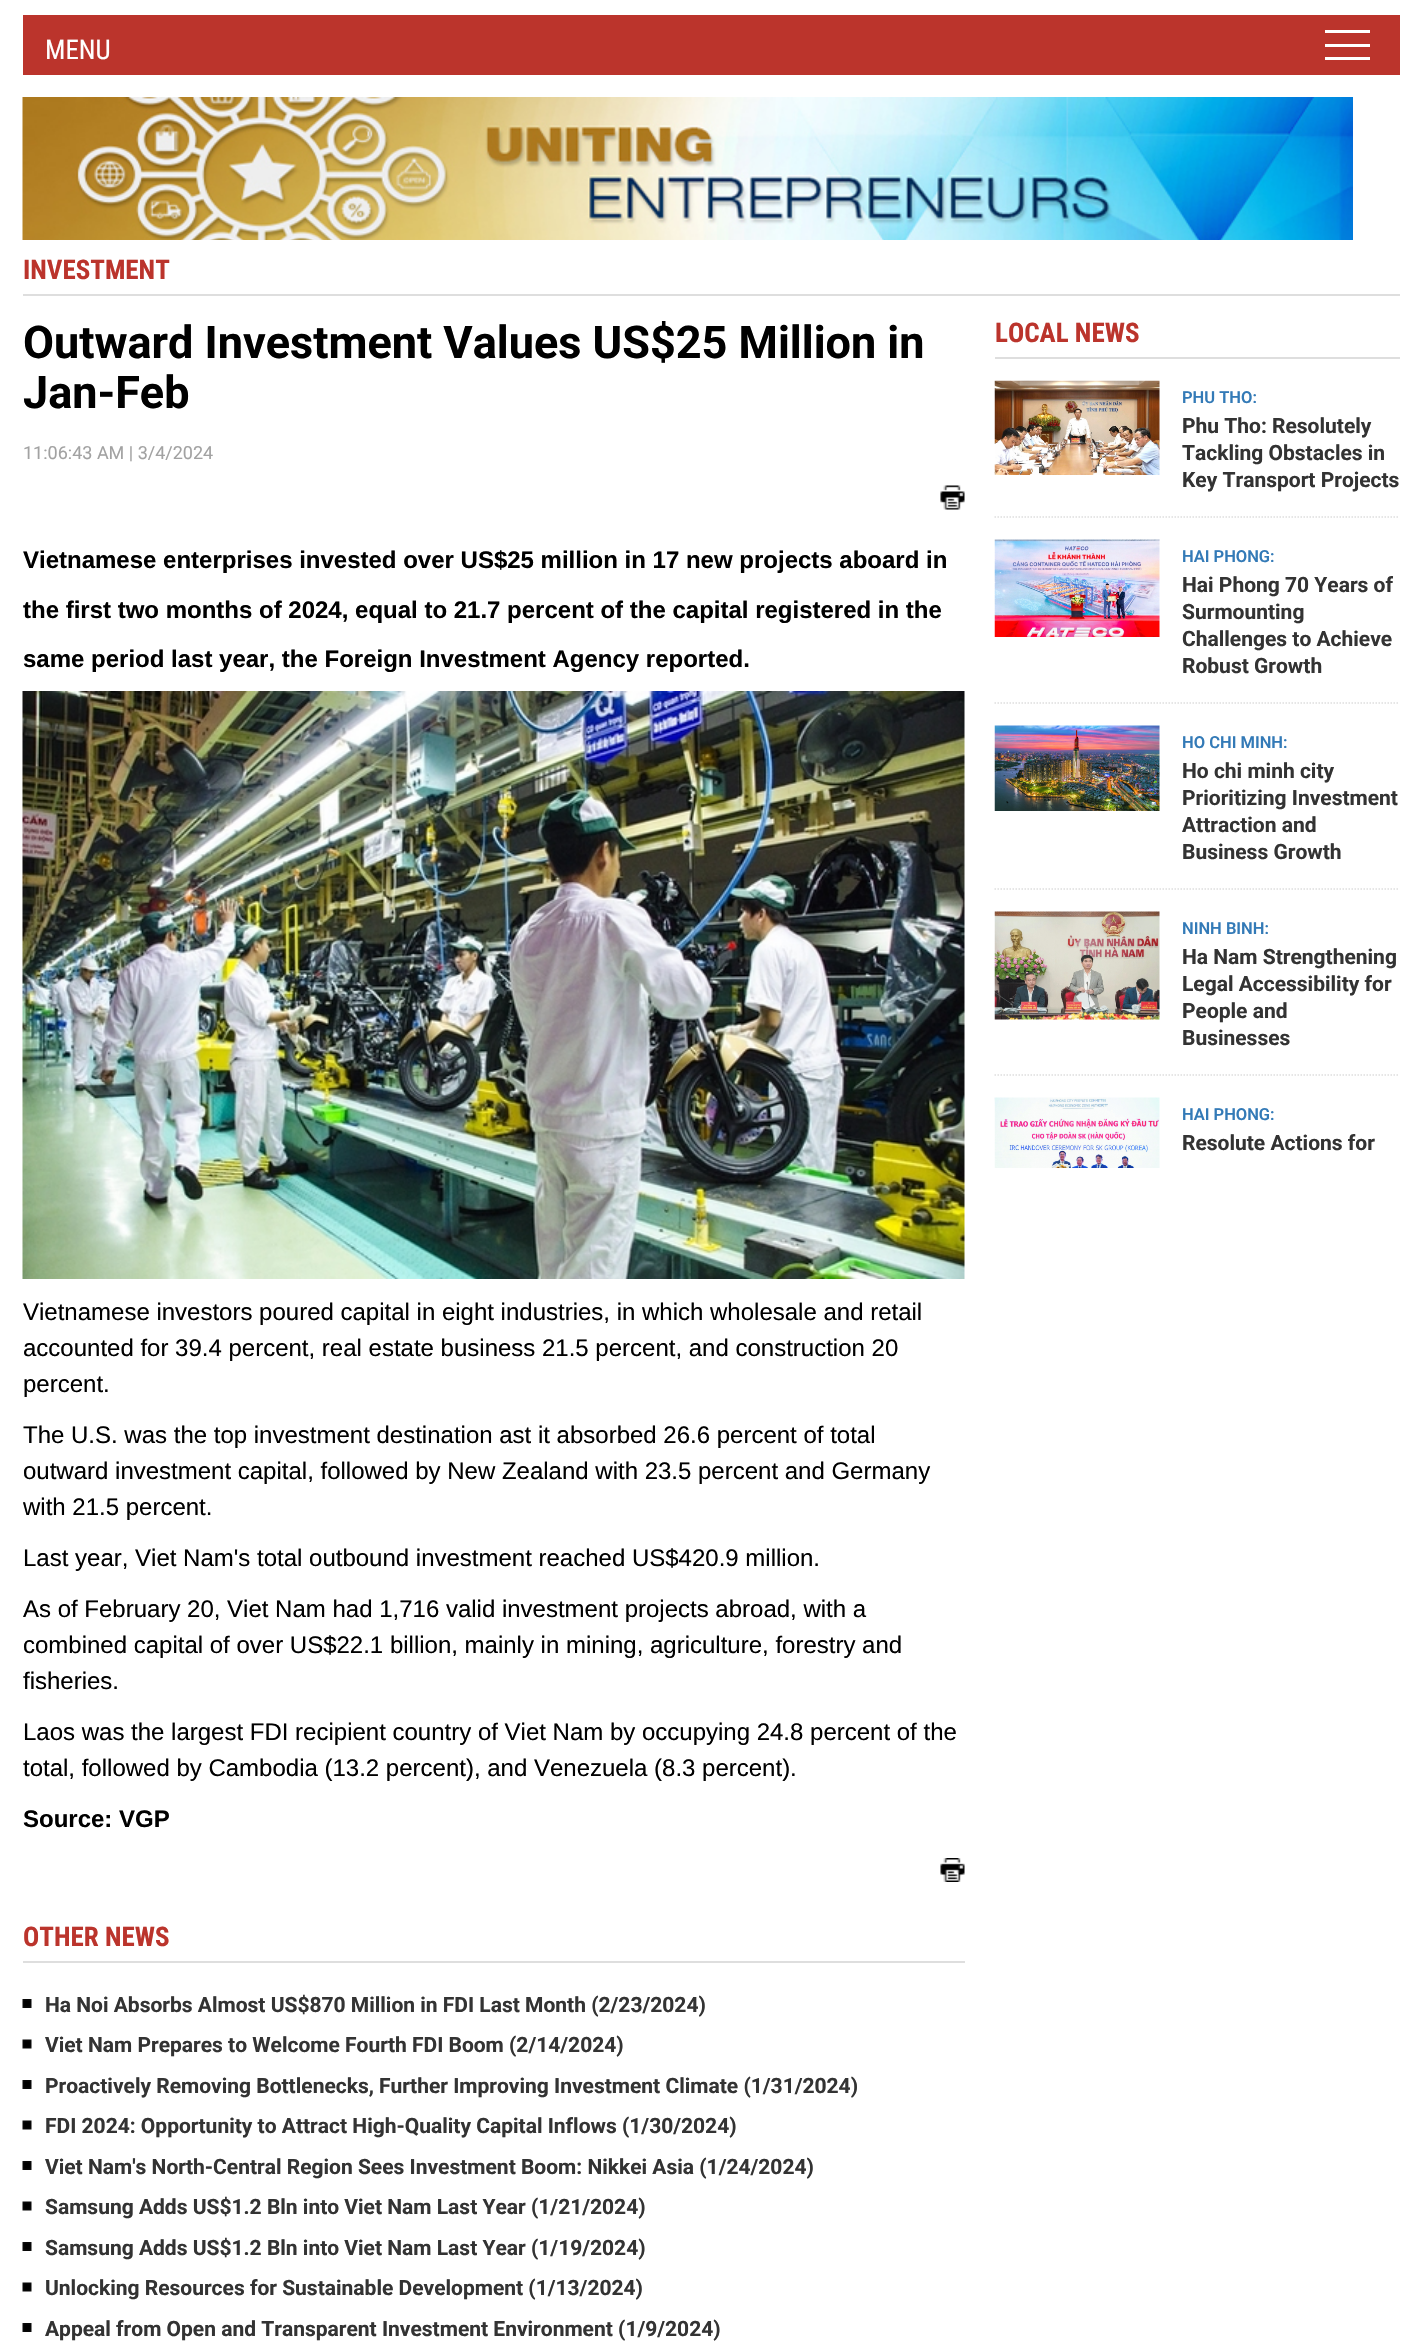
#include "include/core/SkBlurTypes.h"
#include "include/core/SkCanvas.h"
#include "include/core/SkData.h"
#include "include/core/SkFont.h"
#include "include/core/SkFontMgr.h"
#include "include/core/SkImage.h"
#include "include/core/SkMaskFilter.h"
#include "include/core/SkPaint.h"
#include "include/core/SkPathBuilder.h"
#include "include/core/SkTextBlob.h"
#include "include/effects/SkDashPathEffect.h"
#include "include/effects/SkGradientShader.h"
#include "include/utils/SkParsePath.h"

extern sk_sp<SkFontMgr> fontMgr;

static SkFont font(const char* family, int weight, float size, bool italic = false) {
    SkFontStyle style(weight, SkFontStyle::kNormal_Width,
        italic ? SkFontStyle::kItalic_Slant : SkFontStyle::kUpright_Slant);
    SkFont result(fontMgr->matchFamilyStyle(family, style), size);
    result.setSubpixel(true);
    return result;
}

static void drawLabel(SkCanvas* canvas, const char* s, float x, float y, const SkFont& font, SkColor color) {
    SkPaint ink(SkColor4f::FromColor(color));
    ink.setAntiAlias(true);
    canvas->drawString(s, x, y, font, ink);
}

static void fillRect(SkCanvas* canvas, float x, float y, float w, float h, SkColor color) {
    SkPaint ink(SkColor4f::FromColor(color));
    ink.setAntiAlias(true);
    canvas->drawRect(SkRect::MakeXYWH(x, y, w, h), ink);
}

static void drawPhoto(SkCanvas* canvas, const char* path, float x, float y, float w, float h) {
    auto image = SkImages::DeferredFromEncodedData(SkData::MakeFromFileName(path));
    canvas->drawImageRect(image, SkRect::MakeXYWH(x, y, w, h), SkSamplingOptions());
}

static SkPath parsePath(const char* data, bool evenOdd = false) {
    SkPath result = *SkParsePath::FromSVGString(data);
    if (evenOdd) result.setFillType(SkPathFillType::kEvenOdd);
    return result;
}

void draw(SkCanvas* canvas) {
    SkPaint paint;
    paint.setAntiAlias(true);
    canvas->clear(0xFFFFFFFF);
    fillRect(canvas, 23, 15, 1377, 60, 0xFFBB342C);
    SkFont font1 = font("Roboto Condensed", 400, 27);
    drawLabel(canvas, "MENU", 45, 59, font1, 0xFFFFFFFF);
    fillRect(canvas, 1325, 30, 45, 3, 0xFFFFFFFF);
    fillRect(canvas, 1325, 44, 45, 3, 0xFFFFFFFF);
    fillRect(canvas, 1325, 57, 45, 3, 0xFFFFFFFF);
    drawPhoto(canvas, "assets/img1.png", 22, 97, 1331, 143);
    fillRect(canvas, 23, 294, 1377, 2, 0xFFDEDEDE);
    SkFont font2 = font("Roboto Condensed", 700, 27);
    drawLabel(canvas, "INVESTMENT", 23, 279, font2, 0xFFBB342C);
    SkFont font3 = font("Roboto", 700, 45);
    drawLabel(canvas, "Outward Investment Values US$25 Million in", 23, 358, font3, 0xFF000000);
    drawLabel(canvas, "Jan-Feb", 23, 408, font3, 0xFF000000);
    SkFont font4 = font("Roboto", 400, 18);
    drawLabel(canvas, "11:06:43 AM | 3/4/2024", 23, 459, font4, 0xFFA2A2A2);
    drawPhoto(canvas, "assets/img2.png", 940, 485, 25, 25);
    SkFont font5 = font("Liberation Sans", 700, 24);
    drawLabel(canvas, "Vietnamese enterprises invested over US$25 million in 17 new projects aboard in", 23, 568, font5, 0xFF000000);
    drawLabel(canvas, "the first two months of 2024, equal to 21.7 percent of the capital registered in the", 23, 618, font5, 0xFF000000);
    drawLabel(canvas, "same period last year, the Foreign Investment Agency reported.", 23, 667, font5, 0xFF000000);
    drawPhoto(canvas, "assets/img3.png", 22, 691, 943, 588);
    SkFont font6 = font("Liberation Sans", 400, 24);
    drawLabel(canvas, "Vietnamese investors poured capital in eight industries, in which wholesale and retail", 23, 1320, font6, 0xFF000000);
    drawLabel(canvas, "accounted for 39.4 percent, real estate business 21.5 percent, and construction 20", 23, 1356, font6, 0xFF000000);
    drawLabel(canvas, "percent.", 23, 1392, font6, 0xFF000000);
    drawLabel(canvas, "The U.S. was the top investment destination ast it absorbed 26.6 percent of total", 23, 1443, font6, 0xFF000000);
    drawLabel(canvas, "outward investment capital, followed by New Zealand with 23.5 percent and Germany", 23, 1479, font6, 0xFF000000);
    drawLabel(canvas, "with 21.5 percent.", 23, 1515, font6, 0xFF000000);
    drawLabel(canvas, "Last year, Viet Nam's total outbound investment reached US$420.9 million.", 23, 1566, font6, 0xFF000000);
    drawLabel(canvas, "As of February 20, Viet Nam had 1,716 valid investment projects abroad, with a", 23, 1617, font6, 0xFF000000);
    drawLabel(canvas, "combined capital of over US$22.1 billion, mainly in mining, agriculture, forestry and", 23, 1653, font6, 0xFF000000);
    drawLabel(canvas, "fisheries.", 23, 1689, font6, 0xFF000000);
    drawLabel(canvas, "Laos was the largest FDI recipient country of Viet Nam by occupying 24.8 percent of the", 23, 1740, font6, 0xFF000000);
    drawLabel(canvas, "total, followed by Cambodia (13.2 percent), and Venezuela (8.3 percent).", 23, 1776, font6, 0xFF000000);
    drawLabel(canvas, "Source: VGP", 23, 1827, font5, 0xFF000000);
    drawPhoto(canvas, "assets/img4.png", 940, 1858, 25, 24);
    fillRect(canvas, 23, 1961, 942, 2, 0xFFDEDEDE);
    drawLabel(canvas, "OTHER NEWS", 23, 1946, font2, 0xFFBB342C);
    drawPhoto(canvas, "assets/img5.png", 22, 1999, 10, 9);
    SkFont font7 = font("Roboto", 700, 21);
    drawLabel(canvas, "Ha Noi Absorbs Almost US$870 Million in FDI Last Month (2/23/2024)", 45, 2012, font7, 0xFF333333);
    drawPhoto(canvas, "assets/img6.png", 22, 2039, 10, 10);
    drawLabel(canvas, "Viet Nam Prepares to Welcome Fourth FDI Boom (2/14/2024)", 45, 2052, font7, 0xFF333333);
    drawPhoto(canvas, "assets/img5.png", 22, 2080, 10, 9);
    drawLabel(canvas, "Proactively Removing Bottlenecks, Further Improving Investment Climate (1/31/2024)", 45, 2093, font7, 0xFF333333);
    drawPhoto(canvas, "assets/img6.png", 22, 2120, 10, 10);
    drawLabel(canvas, "FDI 2024: Opportunity to Attract High-Quality Capital Inflows (1/30/2024)", 45, 2133, font7, 0xFF333333);
    drawPhoto(canvas, "assets/img5.png", 22, 2161, 10, 9);
    drawLabel(canvas, "Viet Nam's North-Central Region Sees Investment Boom: Nikkei Asia (1/24/2024)", 45, 2174, font7, 0xFF333333);
    drawPhoto(canvas, "assets/img6.png", 22, 2201, 10, 10);
    drawLabel(canvas, "Samsung Adds US$1.2 Bln into Viet Nam Last Year (1/21/2024)", 45, 2214, font7, 0xFF333333);
    drawPhoto(canvas, "assets/img5.png", 22, 2242, 10, 9);
    drawLabel(canvas, "Samsung Adds US$1.2 Bln into Viet Nam Last Year (1/19/2024)", 45, 2255, font7, 0xFF333333);
    drawPhoto(canvas, "assets/img6.png", 22, 2282, 10, 10);
    drawLabel(canvas, "Unlocking Resources for Sustainable Development (1/13/2024)", 45, 2295, font7, 0xFF333333);
    drawPhoto(canvas, "assets/img5.png", 22, 2323, 10, 9);
    drawLabel(canvas, "Appeal from Open and Transparent Investment Environment (1/9/2024)", 45, 2336, font7, 0xFF333333);
    fillRect(canvas, 995, 357, 405, 2, 0xFFDEDEDE);
    drawLabel(canvas, "LOCAL NEWS", 995, 342, font2, 0xFFBB342C);
    paint.setStroke(true);
    paint.setStrokeWidth(1.5f);
    paint.setColor(0xFFDEDEDE);
    paint.setPathEffect(SkDashPathEffect::Make({{1.5f, 1.5f}}, 0));
    canvas->drawPath(parsePath("M994.5 517H1399.5"), paint);
    paint.setPathEffect(nullptr);
    drawPhoto(canvas, "assets/img7.png", 994, 380, 166, 95);
    SkFont font8 = font("Roboto", 600, 16.5f);
    drawLabel(canvas, "PHU THO:", 1182, 403, font8, 0xFF337AB7);
    drawLabel(canvas, "Phu Tho: Resolutely", 1182, 433, font7, 0xFF333333);
    drawLabel(canvas, "Tackling Obstacles in", 1182, 460, font7, 0xFF333333);
    drawLabel(canvas, "Key Transport Projects", 1182, 487, font7, 0xFF333333);
    paint.setPathEffect(SkDashPathEffect::Make({{1.5f, 1.5f}}, 0));
    canvas->drawPath(parsePath("M994.5 703H1399.5"), paint);
    paint.setPathEffect(nullptr);
    drawPhoto(canvas, "assets/img8.png", 994, 539, 166, 98);
    drawLabel(canvas, "HAI PHONG:", 1182, 562, font8, 0xFF337AB7);
    drawLabel(canvas, "Hai Phong 70 Years of", 1182, 592, font7, 0xFF333333);
    drawLabel(canvas, "Surmounting", 1182, 619, font7, 0xFF333333);
    drawLabel(canvas, "Challenges to Achieve", 1182, 646, font7, 0xFF333333);
    drawLabel(canvas, "Robust Growth", 1182, 673, font7, 0xFF333333);
    paint.setPathEffect(SkDashPathEffect::Make({{1.5f, 1.5f}}, 0));
    canvas->drawPath(parsePath("M994.5 889H1399.5"), paint);
    paint.setPathEffect(nullptr);
    drawPhoto(canvas, "assets/img9.png", 994, 725, 166, 86);
    drawLabel(canvas, "HO CHI MINH:", 1182, 748, font8, 0xFF337AB7);
    drawLabel(canvas, "Ho chi minh city", 1182, 778, font7, 0xFF333333);
    drawLabel(canvas, "Prioritizing Investment", 1182, 805, font7, 0xFF333333);
    drawLabel(canvas, "Attraction and", 1182, 832, font7, 0xFF333333);
    drawLabel(canvas, "Business Growth", 1182, 859, font7, 0xFF333333);
    paint.setPathEffect(SkDashPathEffect::Make({{1.5f, 1.5f}}, 0));
    canvas->drawPath(parsePath("M994.5 1075H1399.5"), paint);
    paint.setPathEffect(nullptr);
    drawPhoto(canvas, "assets/img10.png", 994, 911, 166, 109);
    drawLabel(canvas, "NINH BINH:", 1182, 934, font8, 0xFF337AB7);
    drawLabel(canvas, "Ha Nam Strengthening", 1182, 964, font7, 0xFF333333);
    drawLabel(canvas, "Legal Accessibility for", 1182, 991, font7, 0xFF333333);
    drawLabel(canvas, "People and", 1182, 1018, font7, 0xFF333333);
    drawLabel(canvas, "Businesses", 1182, 1045, font7, 0xFF333333);
    drawPhoto(canvas, "assets/img11.png", 994, 1097, 166, 71);
    drawLabel(canvas, "HAI PHONG:", 1182, 1120, font8, 0xFF337AB7);
    drawLabel(canvas, "Resolute Actions for", 1182, 1150, font7, 0xFF333333);
}
